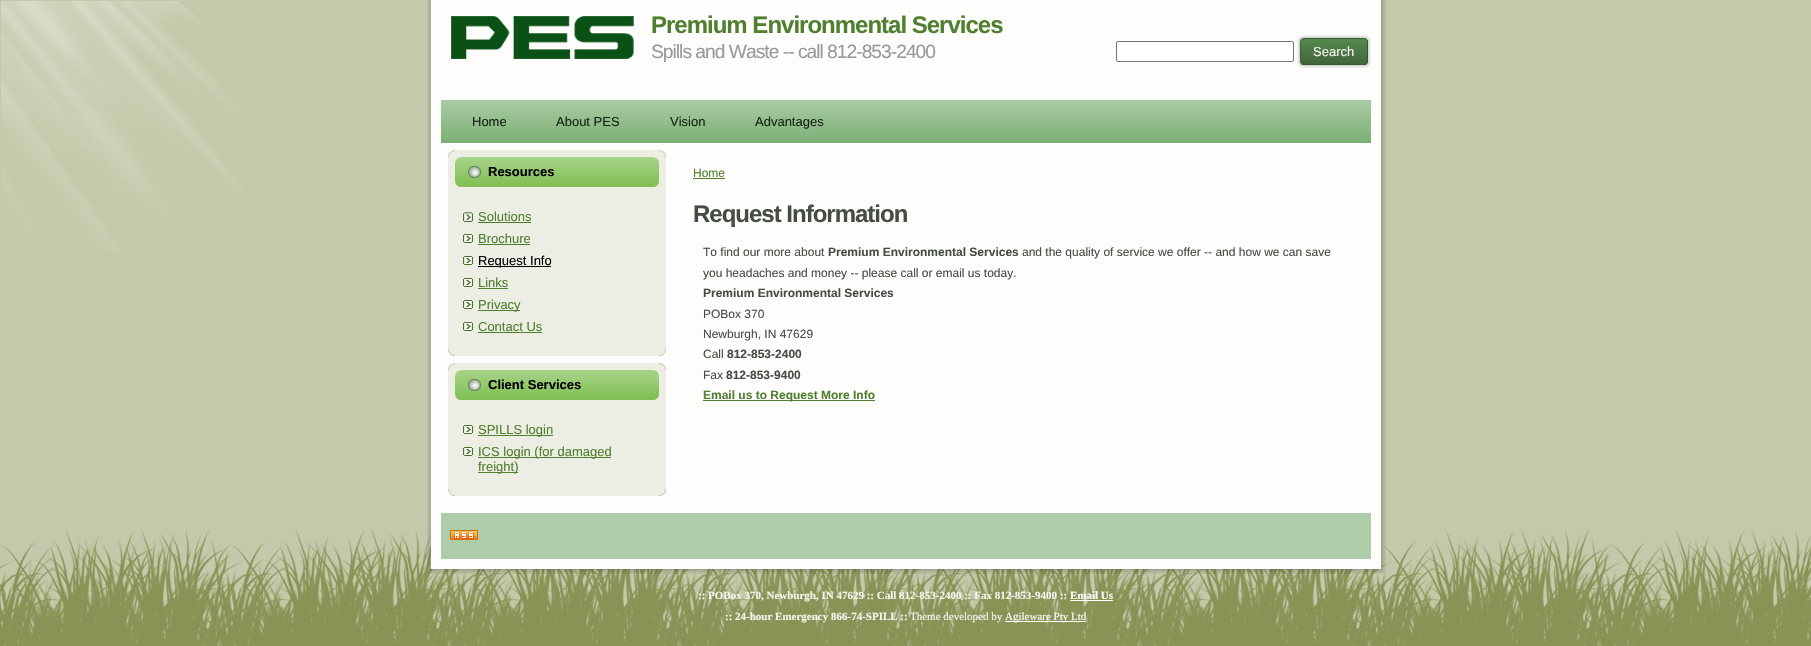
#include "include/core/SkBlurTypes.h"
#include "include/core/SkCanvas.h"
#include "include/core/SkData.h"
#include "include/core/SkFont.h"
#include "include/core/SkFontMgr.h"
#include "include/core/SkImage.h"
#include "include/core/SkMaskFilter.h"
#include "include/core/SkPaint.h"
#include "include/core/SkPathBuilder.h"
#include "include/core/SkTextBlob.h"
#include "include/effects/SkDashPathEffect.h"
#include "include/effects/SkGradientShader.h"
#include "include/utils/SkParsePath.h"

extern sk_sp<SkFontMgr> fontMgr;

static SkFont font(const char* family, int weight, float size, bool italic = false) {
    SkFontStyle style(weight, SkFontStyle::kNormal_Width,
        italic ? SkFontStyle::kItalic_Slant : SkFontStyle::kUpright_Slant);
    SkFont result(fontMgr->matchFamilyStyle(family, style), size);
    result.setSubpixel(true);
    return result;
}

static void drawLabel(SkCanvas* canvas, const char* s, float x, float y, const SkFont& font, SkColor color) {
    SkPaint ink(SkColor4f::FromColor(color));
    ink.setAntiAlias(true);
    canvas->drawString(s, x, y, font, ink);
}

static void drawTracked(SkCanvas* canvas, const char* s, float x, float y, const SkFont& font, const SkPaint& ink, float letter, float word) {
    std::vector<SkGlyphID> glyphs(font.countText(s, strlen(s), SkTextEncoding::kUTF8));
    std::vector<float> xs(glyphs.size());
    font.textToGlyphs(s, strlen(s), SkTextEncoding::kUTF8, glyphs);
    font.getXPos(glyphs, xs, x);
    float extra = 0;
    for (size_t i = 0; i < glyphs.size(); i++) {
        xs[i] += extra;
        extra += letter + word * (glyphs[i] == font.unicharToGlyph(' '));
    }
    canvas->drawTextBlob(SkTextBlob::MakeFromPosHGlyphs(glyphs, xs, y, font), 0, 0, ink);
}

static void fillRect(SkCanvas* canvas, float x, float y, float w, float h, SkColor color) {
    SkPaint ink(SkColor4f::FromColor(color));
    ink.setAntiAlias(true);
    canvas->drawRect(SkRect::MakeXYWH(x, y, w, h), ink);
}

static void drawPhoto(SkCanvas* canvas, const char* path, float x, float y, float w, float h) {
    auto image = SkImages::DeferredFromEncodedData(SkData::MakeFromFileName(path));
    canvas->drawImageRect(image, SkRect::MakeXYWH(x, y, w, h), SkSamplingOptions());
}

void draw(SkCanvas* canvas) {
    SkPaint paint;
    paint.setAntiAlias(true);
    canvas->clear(0xFFC5C9AB);
    drawPhoto(canvas, "assets/img1.png", 0, 528, 1811, 118);
    drawPhoto(canvas, "assets/img2.png", 1, 1, 245, 252);
    drawPhoto(canvas, "assets/img3.png", 427, 0, 20, 6);
    fillRect(canvas, 447, 0, 918, 513, 0xFFFDFDFC);
    drawPhoto(canvas, "assets/img4.png", 1365, 0, 21, 6);
    drawPhoto(canvas, "assets/img5.png", 427, 6, 20, 547);
    drawPhoto(canvas, "assets/img6.png", 451, 16, 183, 43);
    SkFont font1 = font("Liberation Sans", 700, 24);
    paint.setColor(0xFF507F2F);
    drawTracked(canvas, "Premium Environmental Services", 651, 33, font1, paint, -1, 0);
    SkFont font2 = font("Liberation Sans", 400, 19.25f);
    paint.setColor(0xFF999999);
    drawTracked(canvas, "Spills and Waste -- call 812-853-2400", 651, 58, font2, paint, -1, 0);
    paint.setColor(0xFFFFFFFF);
    canvas->drawRoundRect(SkRect::MakeXYWH(1116.5f, 41.5f, 177, 20), 1.5f, 1.5f, paint);
    paint.setStroke(true);
    paint.setStrokeWidth(1);
    paint.setColor(0xFF767676);
    canvas->drawRoundRect(SkRect::MakeXYWH(1116.5f, 41.5f, 177, 20), 1.5f, 1.5f, paint);
    drawPhoto(canvas, "assets/img7.png", 1297, 35, 64, 33);
    drawPhoto(canvas, "assets/img20.png", 1365, 6, 21, 547);
    drawPhoto(canvas, "assets/img8.png", 1361, 35, 10, 33);
    SkFont font3 = font("Liberation Sans", 400, 13);
    drawLabel(canvas, "Search", 1313, 56, font3, 0xFFF4F5EF);
    drawPhoto(canvas, "assets/img9.png", 441, 100, 930, 43);
    drawLabel(canvas, "Home", 472, 126, font3, 0xFF162414);
    drawLabel(canvas, "About PES", 556, 126, font3, 0xFF162414);
    drawLabel(canvas, "Vision", 670, 126, font3, 0xFF162414);
    drawLabel(canvas, "Advantages", 755, 126, font3, 0xFF162414);
    drawPhoto(canvas, "assets/img10.png", 448, 150, 7, 7);
    fillRect(canvas, 455, 150, 204, 7, 0xFFECEDE3);
    drawPhoto(canvas, "assets/img11.png", 659, 150, 7, 7);
    fillRect(canvas, 448, 157, 7, 192, 0xFFECEDE3);
    fillRect(canvas, 455, 157, 211, 192, 0xFFECEDE3);
    drawPhoto(canvas, "assets/img12.png", 455, 157, 198, 30);
    drawPhoto(canvas, "assets/img13.png", 653, 157, 6, 30);
    drawPhoto(canvas, "assets/img14.png", 468, 166, 13, 12);
    SkFont font4 = font("Liberation Sans", 700, 13);
    drawLabel(canvas, "Resources", 488, 176, font4, 0xFF000000);
    drawPhoto(canvas, "assets/img15.png", 463, 212, 10, 10);
    drawLabel(canvas, "Solutions", 478, 221, font3, 0xFF507F2F);
    fillRect(canvas, 478, 222, 53, 1, 0xFF507F2F);
    drawPhoto(canvas, "assets/img16.png", 463, 234, 10, 9);
    drawLabel(canvas, "Brochure", 478, 243, font3, 0xFF507F2F);
    fillRect(canvas, 478, 244, 52, 1, 0xFF507F2F);
    drawPhoto(canvas, "assets/img16.png", 463, 256, 10, 9);
    fillRect(canvas, 478, 266, 73, 1, 0xFF000000);
    drawLabel(canvas, "Request Info", 478, 265, font3, 0xFF000000);
    drawPhoto(canvas, "assets/img16.png", 463, 278, 10, 9);
    drawLabel(canvas, "Links", 478, 287, font3, 0xFF507F2F);
    fillRect(canvas, 478, 288, 30, 1, 0xFF507F2F);
    drawPhoto(canvas, "assets/img16.png", 463, 300, 10, 9);
    fillRect(canvas, 478, 310, 42, 1, 0xFF507F2F);
    drawLabel(canvas, "Privacy", 478, 309, font3, 0xFF507F2F);
    drawPhoto(canvas, "assets/img16.png", 463, 322, 10, 9);
    drawLabel(canvas, "Contact Us", 478, 331, font3, 0xFF507F2F);
    fillRect(canvas, 478, 332, 64, 1, 0xFF507F2F);
    drawPhoto(canvas, "assets/img17.png", 448, 349, 7, 7);
    fillRect(canvas, 455, 349, 204, 7, 0xFFECEDE3);
    drawPhoto(canvas, "assets/img18.png", 659, 349, 7, 7);
    drawPhoto(canvas, "assets/img10.png", 448, 363, 7, 7);
    fillRect(canvas, 455, 363, 204, 7, 0xFFECEDE3);
    drawPhoto(canvas, "assets/img11.png", 659, 363, 7, 7);
    fillRect(canvas, 448, 370, 7, 119, 0xFFECEDE3);
    fillRect(canvas, 455, 370, 211, 119, 0xFFECEDE3);
    drawPhoto(canvas, "assets/img12.png", 455, 370, 198, 30);
    drawPhoto(canvas, "assets/img13.png", 653, 370, 6, 30);
    drawPhoto(canvas, "assets/img14.png", 468, 379, 13, 12);
    drawLabel(canvas, "Client Services", 488, 389, font4, 0xFF000000);
    drawPhoto(canvas, "assets/img16.png", 463, 425, 10, 9);
    fillRect(canvas, 478, 435, 75, 1, 0xFF507F2F);
    drawLabel(canvas, "SPILLS login", 478, 434, font3, 0xFF507F2F);
    drawPhoto(canvas, "assets/img16.png", 463, 447, 10, 9);
    fillRect(canvas, 478, 457, 133, 1, 0xFF507F2F);
    drawLabel(canvas, "ICS login (for damaged", 478, 456, font3, 0xFF507F2F);
    fillRect(canvas, 478, 472, 40, 1, 0xFF507F2F);
    drawLabel(canvas, "freight)", 478, 471, font3, 0xFF507F2F);
    drawPhoto(canvas, "assets/img17.png", 448, 489, 7, 7);
    fillRect(canvas, 455, 489, 204, 7, 0xFFECEDE3);
    drawPhoto(canvas, "assets/img18.png", 659, 489, 7, 7);
    SkFont font5 = font("Liberation Sans", 400, 12);
    drawLabel(canvas, "Home", 693, 177, font5, 0xFF507F2F);
    fillRect(canvas, 693, 178, 32, 1, 0xFF507F2F);
    paint.setStroke(false);
    paint.setColor(0xFF454C43);
    drawTracked(canvas, "Request Information", 693, 222, font1, paint, -1, 0);
    drawLabel(canvas, "To find our more about", 703, 256, font5, 0xFF454C43);
    SkFont font6 = font("Liberation Sans", 700, 12);
    drawLabel(canvas, "Premium Environmental Services", 828, 256, font6, 0xFF454C43);
    drawLabel(canvas, "and the quality of service we offer -- and how we can save", 1022, 256, font5, 0xFF454C43);
    drawLabel(canvas, "you headaches and money -- please call or email us today.", 703, 277, font5, 0xFF454C43);
    drawLabel(canvas, "Premium Environmental Services", 703, 297, font6, 0xFF454C43);
    drawLabel(canvas, "POBox 370", 703, 318, font5, 0xFF454C43);
    drawLabel(canvas, "Newburgh, IN 47629", 703, 338, font5, 0xFF454C43);
    drawLabel(canvas, "Call", 703, 358, font5, 0xFF454C43);
    drawLabel(canvas, "812-853-2400", 727, 358, font6, 0xFF454C43);
    drawLabel(canvas, "Fax", 703, 379, font5, 0xFF454C43);
    drawLabel(canvas, "812-853-9400", 726, 379, font6, 0xFF454C43);
    fillRect(canvas, 703, 400, 172, 1, 0xFF507F2F);
    drawLabel(canvas, "Email us to Request More Info", 703, 399, font6, 0xFF507F2F);
    drawPhoto(canvas, "assets/img21.png", 427, 553, 20, 21);
    drawPhoto(canvas, "assets/img23.png", 1365, 553, 21, 21);
    fillRect(canvas, 441, 513, 930, 46, 0xFFADCDA8);
    drawPhoto(canvas, "assets/img19.png", 450, 530, 28, 10);
    drawPhoto(canvas, "assets/img22.png", 447, 559, 918, 15);
    SkFont font7 = font("Liberation Serif", 700, 11);
    drawLabel(canvas, ":: POBox 370, Newburgh, IN 47629 :: Call 812-853-2400 :: Fax 812-853-9400 ::", 698, 599, font7, 0xFFF4F5EF);
    drawLabel(canvas, "Email Us", 1070, 599, font7, 0xFFFFFFFF);
    fillRect(canvas, 1070, 600, 43, 1, 0xFFFFFFFF);
    drawLabel(canvas, ":: 24-hour Emergency 866-74-SPILL ::", 725, 620, font7, 0xFFF4F5EF);
    SkFont font8 = font("Liberation Serif", 400, 11);
    drawLabel(canvas, "Theme developed by", 910, 620, font8, 0xFFF4F5EF);
    fillRect(canvas, 1005, 621, 81, 1, 0xFFFFFFFF);
    drawLabel(canvas, "Agileware Pty Ltd", 1005, 620, font8, 0xFFFFFFFF);
}
